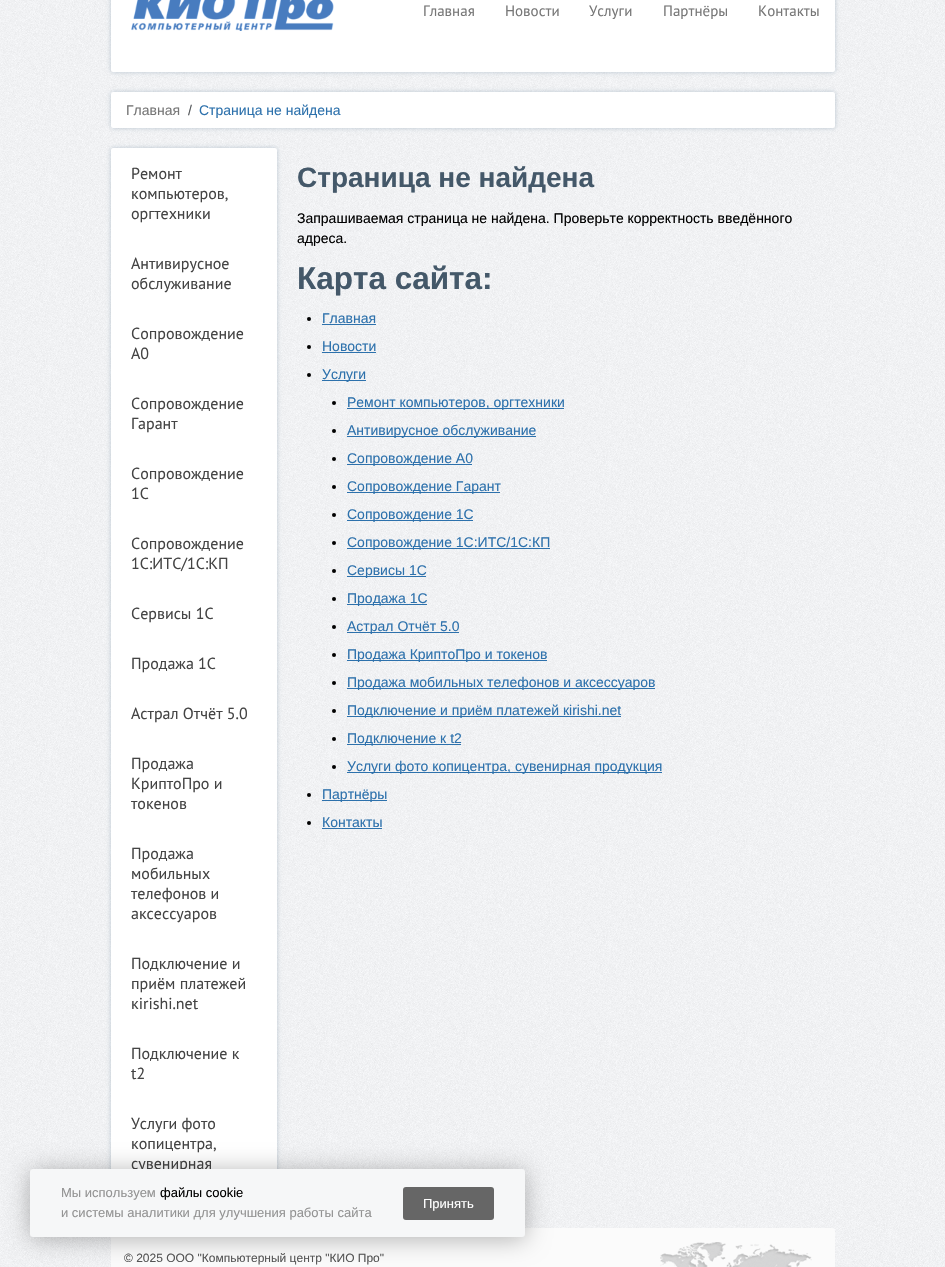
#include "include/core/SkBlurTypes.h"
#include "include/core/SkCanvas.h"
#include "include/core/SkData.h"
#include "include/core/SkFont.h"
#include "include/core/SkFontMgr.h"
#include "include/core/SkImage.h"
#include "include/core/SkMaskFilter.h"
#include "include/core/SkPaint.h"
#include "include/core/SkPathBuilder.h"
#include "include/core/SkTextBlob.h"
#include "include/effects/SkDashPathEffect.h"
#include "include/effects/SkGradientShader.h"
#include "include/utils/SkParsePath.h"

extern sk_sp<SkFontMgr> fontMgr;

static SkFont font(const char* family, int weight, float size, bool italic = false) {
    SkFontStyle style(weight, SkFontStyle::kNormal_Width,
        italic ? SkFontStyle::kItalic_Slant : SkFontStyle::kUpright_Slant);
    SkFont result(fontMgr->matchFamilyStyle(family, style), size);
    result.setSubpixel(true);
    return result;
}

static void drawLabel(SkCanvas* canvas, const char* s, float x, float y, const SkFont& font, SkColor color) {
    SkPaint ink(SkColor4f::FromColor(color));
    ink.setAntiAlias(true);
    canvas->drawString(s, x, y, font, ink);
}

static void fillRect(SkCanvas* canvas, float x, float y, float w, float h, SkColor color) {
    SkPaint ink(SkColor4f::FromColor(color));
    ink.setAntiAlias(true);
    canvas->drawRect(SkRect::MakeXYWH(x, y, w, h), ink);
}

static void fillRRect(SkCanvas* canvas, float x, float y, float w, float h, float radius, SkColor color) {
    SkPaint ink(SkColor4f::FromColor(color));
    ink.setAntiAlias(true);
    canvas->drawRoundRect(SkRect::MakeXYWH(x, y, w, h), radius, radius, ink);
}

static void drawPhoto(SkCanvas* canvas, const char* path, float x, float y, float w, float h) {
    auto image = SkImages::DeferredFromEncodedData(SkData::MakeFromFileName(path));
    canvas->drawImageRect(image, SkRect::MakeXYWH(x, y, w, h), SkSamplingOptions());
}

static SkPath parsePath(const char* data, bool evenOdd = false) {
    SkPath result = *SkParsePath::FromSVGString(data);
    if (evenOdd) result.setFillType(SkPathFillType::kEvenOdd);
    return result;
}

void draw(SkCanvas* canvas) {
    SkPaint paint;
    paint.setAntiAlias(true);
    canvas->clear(0xFFFFFFFF);
    drawPhoto(canvas, "assets/img1.png", 0, 0, 945, 1267);
    paint.setColor(0x9993A7B7);
    paint.setMaskFilter(SkMaskFilter::MakeBlur(kNormal_SkBlurStyle, 2.5f));
    canvas->drawRoundRect(SkRect::MakeXYWH(111, -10, 724, 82), 2, 2, paint);
    paint.setMaskFilter(nullptr);
    fillRRect(canvas, 111, -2, 724, 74, 2, 0xFFFFFFFF);
    drawPhoto(canvas, "assets/img2.png", 131, 0, 203, 31);
    SkFont font1 = font("PT Sans", 400, 15);
    drawLabel(canvas, "Главная", 423, 16, font1, 0xFF777777);
    drawLabel(canvas, "Новости", 505, 16, font1, 0xFF777777);
    drawLabel(canvas, "Услуги", 589, 16, font1, 0xFF777777);
    drawLabel(canvas, "Партнёры", 663, 16, font1, 0xFF777777);
    drawLabel(canvas, "Контакты", 758, 16, font1, 0xFF777777);
    paint.setMaskFilter(SkMaskFilter::MakeBlur(kNormal_SkBlurStyle, 2.5f));
    canvas->drawRoundRect(SkRect::MakeXYWH(111, 92, 724, 36), 2, 2, paint);
    paint.setMaskFilter(nullptr);
    fillRRect(canvas, 111, 92, 724, 36, 2, 0xFFFFFFFF);
    SkFont font2 = font("Liberation Sans", 400, 14);
    drawLabel(canvas, "Главная", 126, 115, font2, 0xFF777777);
    drawLabel(canvas, "/", 188, 115, font2, 0xFF56595C);
    drawLabel(canvas, "Страница не найдена", 199, 115, font2, 0xFF2D71AC);
    paint.setMaskFilter(SkMaskFilter::MakeBlur(kNormal_SkBlurStyle, 2.5f));
    canvas->drawRoundRect(SkRect::MakeXYWH(111, 148, 166, 1060), 2, 2, paint);
    paint.setMaskFilter(nullptr);
    fillRRect(canvas, 111, 148, 166, 1060, 2, 0xFFFFFFFF);
    SkFont font3 = font("PT Sans", 400, 16);
    drawLabel(canvas, "Ремонт", 131, 179, font3, 0xFF444444);
    drawLabel(canvas, "компьютеров,", 131, 199, font3, 0xFF444444);
    drawLabel(canvas, "оргтехники", 131, 219, font3, 0xFF444444);
    drawLabel(canvas, "Антивирусное", 131, 269, font3, 0xFF444444);
    drawLabel(canvas, "обслуживание", 131, 289, font3, 0xFF444444);
    drawLabel(canvas, "Сопровождение", 131, 339, font3, 0xFF444444);
    drawLabel(canvas, "А0", 131, 359, font3, 0xFF444444);
    drawLabel(canvas, "Сопровождение", 131, 409, font3, 0xFF444444);
    drawLabel(canvas, "Гарант", 131, 429, font3, 0xFF444444);
    drawLabel(canvas, "Сопровождение", 131, 479, font3, 0xFF444444);
    drawLabel(canvas, "1С", 131, 499, font3, 0xFF444444);
    drawLabel(canvas, "Сопровождение", 131, 549, font3, 0xFF444444);
    drawLabel(canvas, "1С:ИТС/1С:КП", 131, 569, font3, 0xFF444444);
    drawLabel(canvas, "Сервисы 1С", 131, 619, font3, 0xFF444444);
    drawLabel(canvas, "Продажа 1С", 131, 669, font3, 0xFF444444);
    drawLabel(canvas, "Астрал Отчёт 5.0", 131, 719, font3, 0xFF444444);
    drawLabel(canvas, "Продажа", 131, 769, font3, 0xFF444444);
    drawLabel(canvas, "КриптоПро и", 131, 789, font3, 0xFF444444);
    drawLabel(canvas, "токенов", 131, 809, font3, 0xFF444444);
    drawLabel(canvas, "Продажа", 131, 859, font3, 0xFF444444);
    drawLabel(canvas, "мобильных", 131, 879, font3, 0xFF444444);
    drawLabel(canvas, "телефонов и", 131, 899, font3, 0xFF444444);
    drawLabel(canvas, "аксессуаров", 131, 919, font3, 0xFF444444);
    drawLabel(canvas, "Подключение и", 131, 969, font3, 0xFF444444);
    drawLabel(canvas, "приём платежей", 131, 989, font3, 0xFF444444);
    drawLabel(canvas, "кirishi.net", 131, 1009, font3, 0xFF444444);
    drawLabel(canvas, "Подключение к", 131, 1059, font3, 0xFF444444);
    drawLabel(canvas, "t2", 131, 1079, font3, 0xFF444444);
    drawLabel(canvas, "Услуги фото", 131, 1129, font3, 0xFF444444);
    drawLabel(canvas, "копицентра,", 131, 1149, font3, 0xFF444444);
    drawLabel(canvas, "сувенирная", 131, 1169, font3, 0xFF444444);
    SkFont font4 = font("Liberation Sans", 700, 28);
    drawLabel(canvas, "Страница не найдена", 297, 187, font4, 0xFF445869);
    drawLabel(canvas, "Запрашиваемая страница не найдена. Проверьте корректность введённого", 297, 223, font2, 0xFF000000);
    drawLabel(canvas, "адреса.", 297, 243, font2, 0xFF000000);
    SkFont font5 = font("Liberation Sans", 700, 31.5f);
    drawLabel(canvas, "Карта сайта:", 297, 289, font5, 0xFF445869);
    paint.setColor(0xFF000000);
    canvas->drawCircle(309, 319, 2, paint);
    drawLabel(canvas, "Главная", 322, 323, font2, 0xFF2D71AC);
    fillRect(canvas, 322, 324, 54, 1, 0xFF2D71AC);
    canvas->drawCircle(309, 347, 2, paint);
    drawLabel(canvas, "Новости", 322, 351, font2, 0xFF2D71AC);
    fillRect(canvas, 322, 352, 54, 1, 0xFF2D71AC);
    canvas->drawCircle(309, 375, 2, paint);
    fillRect(canvas, 322, 380, 44, 1, 0xFF2D71AC);
    drawLabel(canvas, "Услуги", 322, 379, font2, 0xFF2D71AC);
    canvas->drawCircle(334, 403, 2, paint);
    fillRect(canvas, 347, 408, 217, 1, 0xFF2D71AC);
    drawLabel(canvas, "Ремонт компьютеров, оргтехники", 347, 407, font2, 0xFF2D71AC);
    canvas->drawCircle(334, 431, 2, paint);
    fillRect(canvas, 347, 436, 189, 1, 0xFF2D71AC);
    drawLabel(canvas, "Антивирусное обслуживание", 347, 435, font2, 0xFF2D71AC);
    canvas->drawCircle(334, 459, 2, paint);
    fillRect(canvas, 347, 464, 125, 1, 0xFF2D71AC);
    drawLabel(canvas, "Сопровождение А0", 347, 463, font2, 0xFF2D71AC);
    canvas->drawCircle(334, 487, 2, paint);
    fillRect(canvas, 347, 492, 153, 1, 0xFF2D71AC);
    drawLabel(canvas, "Сопровождение Гарант", 347, 491, font2, 0xFF2D71AC);
    canvas->drawCircle(334, 515, 2, paint);
    fillRect(canvas, 347, 520, 126, 1, 0xFF2D71AC);
    drawLabel(canvas, "Сопровождение 1С", 347, 519, font2, 0xFF2D71AC);
    canvas->drawCircle(334, 543, 2, paint);
    fillRect(canvas, 347, 548, 203, 1, 0xFF2D71AC);
    drawLabel(canvas, "Сопровождение 1С:ИТС/1С:КП", 347, 547, font2, 0xFF2D71AC);
    canvas->drawCircle(334, 571, 2, paint);
    fillRect(canvas, 347, 576, 79, 1, 0xFF2D71AC);
    drawLabel(canvas, "Сервисы 1С", 347, 575, font2, 0xFF2D71AC);
    canvas->drawCircle(334, 599, 2, paint);
    fillRect(canvas, 347, 604, 80, 1, 0xFF2D71AC);
    drawLabel(canvas, "Продажа 1С", 347, 603, font2, 0xFF2D71AC);
    canvas->drawCircle(334, 627, 2, paint);
    fillRect(canvas, 347, 632, 112, 1, 0xFF2D71AC);
    drawLabel(canvas, "Астрал Отчёт 5.0", 347, 631, font2, 0xFF2D71AC);
    canvas->drawCircle(334, 655, 2, paint);
    fillRect(canvas, 347, 660, 200, 1, 0xFF2D71AC);
    drawLabel(canvas, "Продажа КриптоПро и токенов", 347, 659, font2, 0xFF2D71AC);
    canvas->drawCircle(334, 683, 2, paint);
    fillRect(canvas, 347, 688, 308, 1, 0xFF2D71AC);
    drawLabel(canvas, "Продажа мобильных телефонов и аксессуаров", 347, 687, font2, 0xFF2D71AC);
    canvas->drawCircle(334, 711, 2, paint);
    fillRect(canvas, 347, 716, 274, 1, 0xFF2D71AC);
    drawLabel(canvas, "Подключение и приём платежей кirishi.net", 347, 715, font2, 0xFF2D71AC);
    canvas->drawCircle(334, 739, 2, paint);
    fillRect(canvas, 347, 744, 114, 1, 0xFF2D71AC);
    drawLabel(canvas, "Подключение к t2", 347, 743, font2, 0xFF2D71AC);
    canvas->drawCircle(334, 767, 2, paint);
    fillRect(canvas, 347, 772, 315, 1, 0xFF2D71AC);
    drawLabel(canvas, "Услуги фото копицентра, сувенирная продукция", 347, 771, font2, 0xFF2D71AC);
    canvas->drawCircle(309, 795, 2, paint);
    fillRect(canvas, 322, 800, 65, 1, 0xFF2D71AC);
    drawLabel(canvas, "Партнёры", 322, 799, font2, 0xFF2D71AC);
    canvas->drawCircle(309, 823, 2, paint);
    drawLabel(canvas, "Контакты", 322, 827, font2, 0xFF2D71AC);
    fillRect(canvas, 322, 828, 60, 1, 0xFF2D71AC);
    paint.setColor(0xFFFBFBFB);
    canvas->drawPath(parsePath("M114 1228H832C833.5 1228 835 1229.5 835 1231V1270H111V1231C111 1229.5 112.5 1228 114 1228Z"), paint);
    paint.setColor(0x4D000000);
    paint.setMaskFilter(SkMaskFilter::MakeBlur(kNormal_SkBlurStyle, 12.5f));
    canvas->drawRoundRect(SkRect::MakeXYWH(30, 1171, 495, 68), 3, 3, paint);
    paint.setMaskFilter(nullptr);
    fillRRect(canvas, 30, 1169, 495, 68, 3, 0xFFF6F7F8);
    SkFont font6 = font("Liberation Sans", 400, 13);
    drawLabel(canvas, "Мы используем", 61, 1197, font6, 0xFF939393);
    drawLabel(canvas, "файлы cookie", 160, 1197, font6, 0xFF000000);
    drawLabel(canvas, "и системы аналитики для улучшения работы сайта", 61, 1217, font6, 0xFF939393);
    fillRRect(canvas, 403, 1187, 91, 33, 3, 0xFF666666);
    drawLabel(canvas, "Принять", 423, 1208, font6, 0xFFFFFFFF);
    drawPhoto(canvas, "assets/img3.png", 660, 1242, 152, 25);
    SkFont font7 = font("Liberation Sans", 400, 12);
    drawLabel(canvas, "© 2025 ООО \"Компьютерный центр \"КИО Про\"", 124, 1262, font7, 0xFF555555);
}
